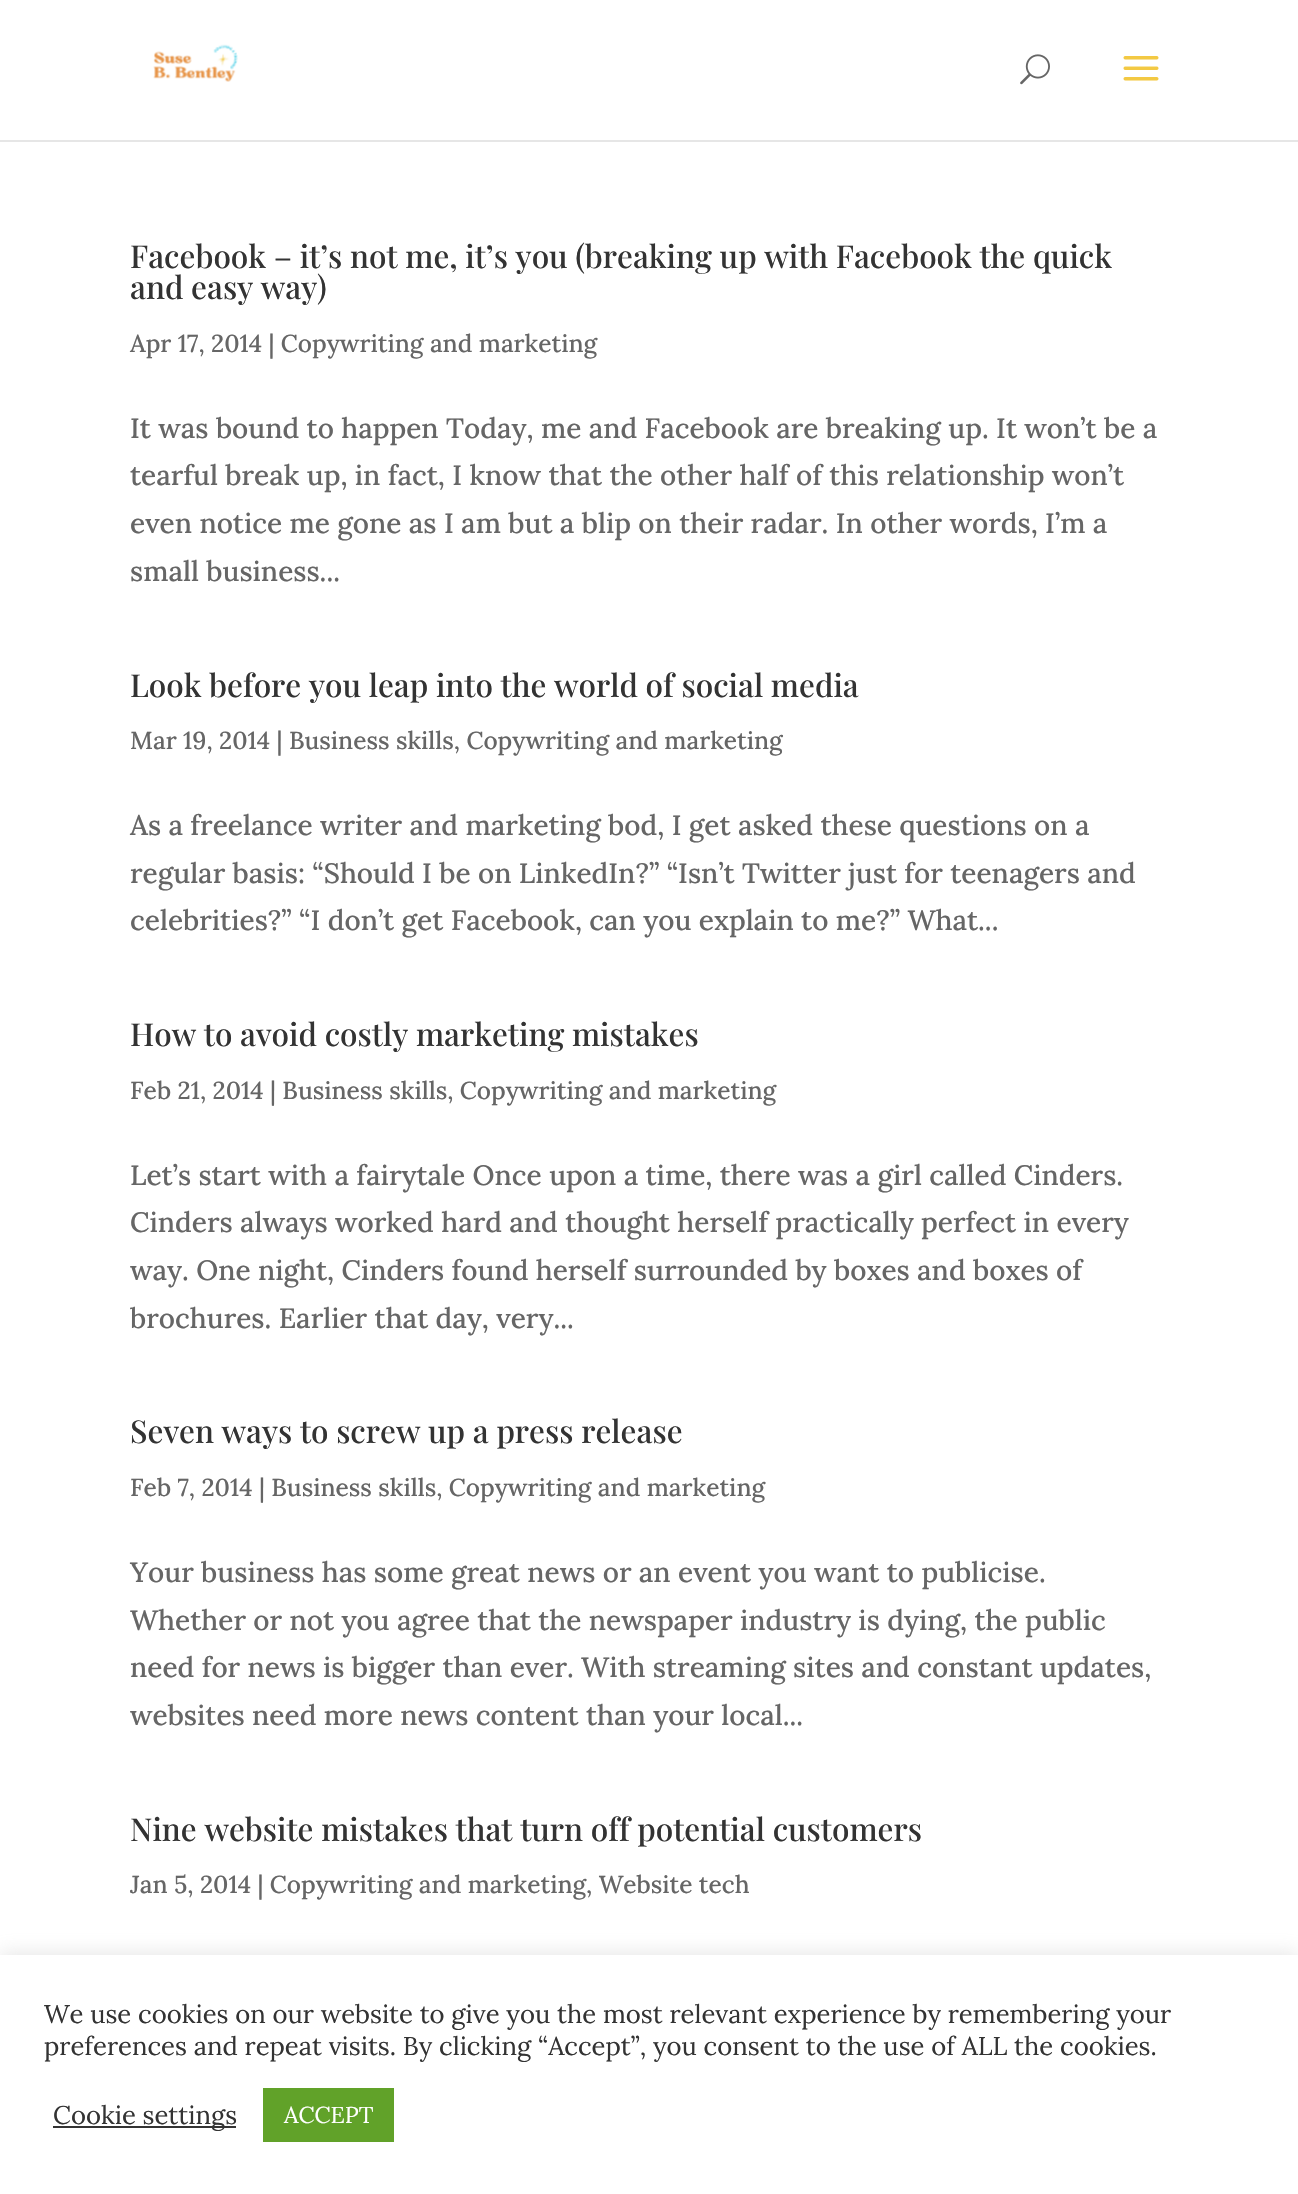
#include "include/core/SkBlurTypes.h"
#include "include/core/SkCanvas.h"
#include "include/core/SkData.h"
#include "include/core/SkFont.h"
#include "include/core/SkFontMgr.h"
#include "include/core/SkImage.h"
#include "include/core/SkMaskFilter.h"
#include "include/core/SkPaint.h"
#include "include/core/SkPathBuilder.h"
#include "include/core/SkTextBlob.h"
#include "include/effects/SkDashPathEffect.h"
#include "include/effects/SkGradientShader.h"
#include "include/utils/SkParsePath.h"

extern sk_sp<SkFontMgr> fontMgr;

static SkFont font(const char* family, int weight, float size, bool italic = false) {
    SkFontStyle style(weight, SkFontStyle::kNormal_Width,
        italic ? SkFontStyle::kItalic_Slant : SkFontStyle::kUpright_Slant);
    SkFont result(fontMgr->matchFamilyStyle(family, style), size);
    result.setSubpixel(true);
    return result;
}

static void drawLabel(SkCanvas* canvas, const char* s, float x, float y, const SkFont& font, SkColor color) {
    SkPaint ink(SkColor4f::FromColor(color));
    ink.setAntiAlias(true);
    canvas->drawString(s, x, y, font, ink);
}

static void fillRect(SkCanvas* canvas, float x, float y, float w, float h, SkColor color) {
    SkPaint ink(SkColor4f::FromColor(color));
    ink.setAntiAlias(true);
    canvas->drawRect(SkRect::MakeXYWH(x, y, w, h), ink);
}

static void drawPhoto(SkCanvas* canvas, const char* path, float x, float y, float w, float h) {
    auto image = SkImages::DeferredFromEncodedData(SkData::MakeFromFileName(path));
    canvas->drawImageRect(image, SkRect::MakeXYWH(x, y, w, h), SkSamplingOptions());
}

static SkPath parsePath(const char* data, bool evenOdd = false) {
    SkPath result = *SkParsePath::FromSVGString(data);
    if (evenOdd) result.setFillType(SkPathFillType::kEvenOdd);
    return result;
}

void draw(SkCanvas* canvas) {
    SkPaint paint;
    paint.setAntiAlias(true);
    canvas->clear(0xFFFFFFFF);
    paint.setColor(0xFFE6E6E6);
    canvas->drawPath(parsePath("M0 140V142H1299V2H1298V140Z"), paint);
    drawPhoto(canvas, "assets/img1.png", 153, 44, 85, 38);
    drawPhoto(canvas, "assets/img2.png", 1020, 54, 30, 31);
    drawPhoto(canvas, "assets/img3.png", 1123, 56, 36, 25);
    SkFont font1 = font("Playfair Display", 500, 31.5f);
    drawLabel(canvas, "Facebook – it’s not me, it’s you (breaking up with Facebook the quick", 130, 268, font1, 0xFF333333);
    drawLabel(canvas, "and easy way)", 130, 299, font1, 0xFF333333);
    SkFont font2 = font("Lora", 500, 24.5f);
    drawLabel(canvas, "Apr 17, 2014 | Copywriting and marketing", 130, 352, font2, 0xFF666666);
    SkFont font3 = font("Lora", 500, 28);
    drawLabel(canvas, "It was bound to happen Today, me and Facebook are breaking up. It won’t be a", 130, 438, font3, 0xFF666666);
    drawLabel(canvas, "tearful break up, in fact, I know that the other half of this relationship won’t", 130, 485, font3, 0xFF666666);
    drawLabel(canvas, "even notice me gone as I am but a blip on their radar. In other words, I’m a", 130, 533, font3, 0xFF666666);
    drawLabel(canvas, "small business...", 130, 581, font3, 0xFF666666);
    drawLabel(canvas, "Look before you leap into the world of social media", 130, 697, font1, 0xFF333333);
    drawLabel(canvas, "Mar 19, 2014 | Business skills, Copywriting and marketing", 130, 749, font2, 0xFF666666);
    drawLabel(canvas, "As a freelance writer and marketing bod, I get asked these questions on a", 130, 835, font3, 0xFF666666);
    drawLabel(canvas, "regular basis: “Should I be on LinkedIn?” “Isn’t Twitter just for teenagers and", 130, 883, font3, 0xFF666666);
    drawLabel(canvas, "celebrities?” “I don’t get Facebook, can you explain to me?” What...", 130, 930, font3, 0xFF666666);
    drawLabel(canvas, "How to avoid costly marketing mistakes", 130, 1046, font1, 0xFF333333);
    drawLabel(canvas, "Feb 21, 2014 | Business skills, Copywriting and marketing", 130, 1099, font2, 0xFF666666);
    drawLabel(canvas, "Let’s start with a fairytale Once upon a time, there was a girl called Cinders.", 130, 1185, font3, 0xFF666666);
    drawLabel(canvas, "Cinders always worked hard and thought herself practically perfect in every", 130, 1232, font3, 0xFF666666);
    drawLabel(canvas, "way. One night, Cinders found herself surrounded by boxes and boxes of", 130, 1280, font3, 0xFF666666);
    drawLabel(canvas, "brochures. Earlier that day, very...", 130, 1328, font3, 0xFF666666);
    drawLabel(canvas, "Seven ways to screw up a press release", 130, 1443, font1, 0xFF333333);
    drawLabel(canvas, "Feb 7, 2014 | Business skills, Copywriting and marketing", 130, 1496, font2, 0xFF666666);
    drawLabel(canvas, "Your business has some great news or an event you want to publicise.", 130, 1582, font3, 0xFF666666);
    drawLabel(canvas, "Whether or not you agree that the newspaper industry is dying, the public", 130, 1630, font3, 0xFF666666);
    drawLabel(canvas, "need for news is bigger than ever. With streaming sites and constant updates,", 130, 1677, font3, 0xFF666666);
    drawLabel(canvas, "websites need more news content than your local...", 130, 1725, font3, 0xFF666666);
    drawLabel(canvas, "Nine website mistakes that turn off potential customers", 130, 1841, font1, 0xFF333333);
    drawLabel(canvas, "Jan 5, 2014 | Copywriting and marketing, Website tech", 130, 1893, font2, 0xFF666666);
    paint.setColor(0x4DACABAB);
    paint.setMaskFilter(SkMaskFilter::MakeBlur(kNormal_SkBlurStyle, 9));
    canvas->drawRect(SkRect::MakeXYWH(0, 1953, 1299, 240), paint);
    paint.setMaskFilter(nullptr);
    fillRect(canvas, 0, 1955, 1298, 239, 0xFFFFFFFF);
    SkFont font4 = font("Lora", 400, 25.65f);
    drawLabel(canvas, "We use cookies on our website to give you the most relevant experience by remembering your", 44, 2023, font4, 0xFF333333);
    drawLabel(canvas, "preferences and repeat visits. By clicking “Accept”, you consent to the use of ALL the cookies.", 44, 2055, font4, 0xFF333333);
    fillRect(canvas, 53, 2126, 183, 2, 0xFF333333);
    drawLabel(canvas, "Cookie settings", 53, 2124, font4, 0xFF333333);
    fillRect(canvas, 263, 2088, 131, 54, 0xFF61A229);
    SkFont font5 = font("Lora", 400, 23);
    drawLabel(canvas, "ACCEPT", 284, 2123, font5, 0xFFFFFFFF);
}
